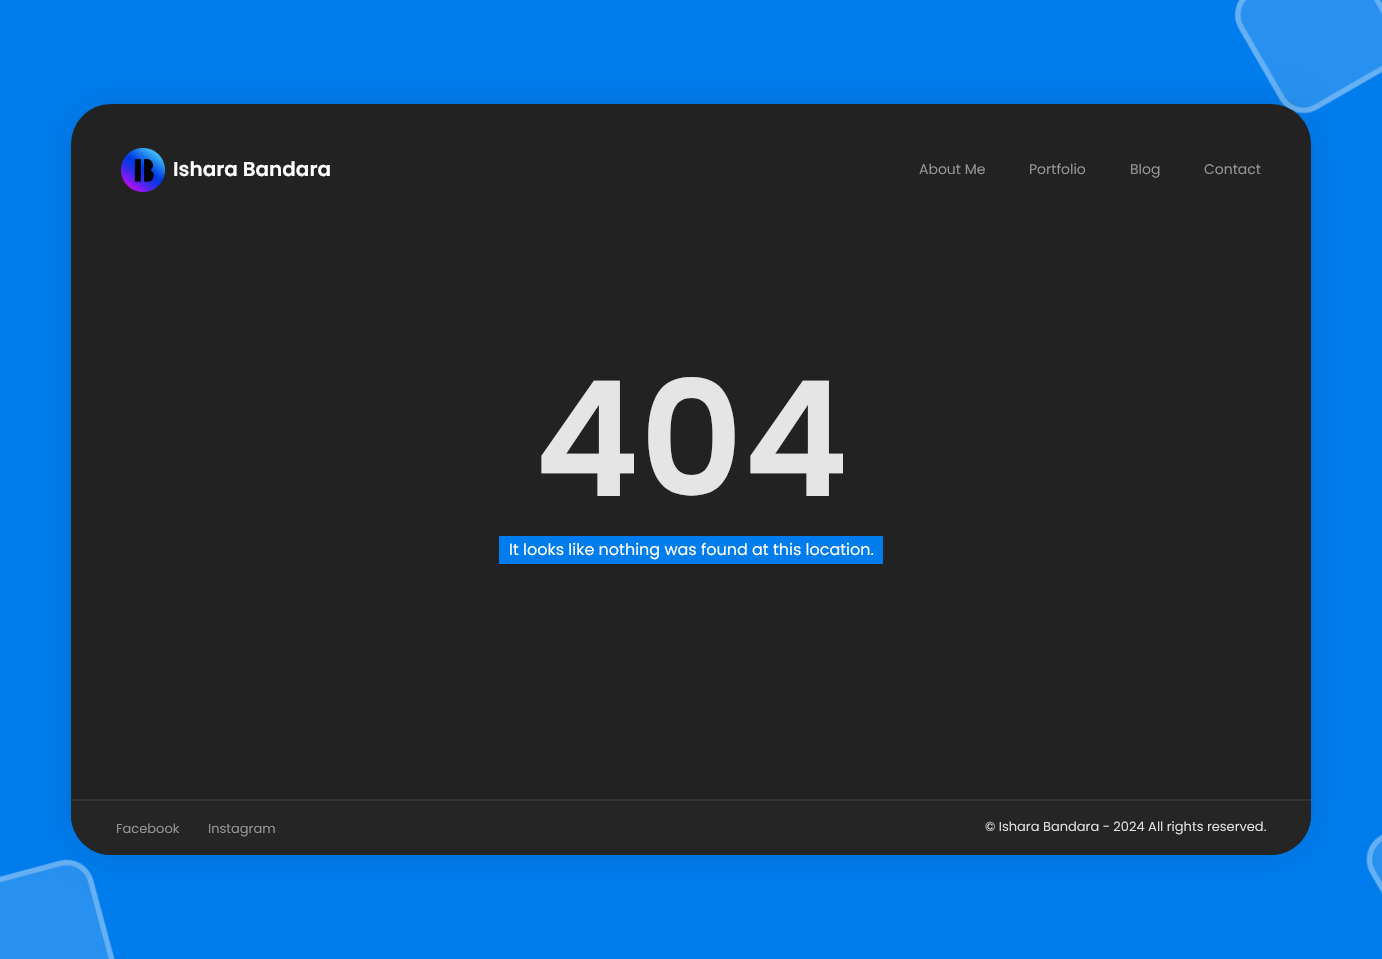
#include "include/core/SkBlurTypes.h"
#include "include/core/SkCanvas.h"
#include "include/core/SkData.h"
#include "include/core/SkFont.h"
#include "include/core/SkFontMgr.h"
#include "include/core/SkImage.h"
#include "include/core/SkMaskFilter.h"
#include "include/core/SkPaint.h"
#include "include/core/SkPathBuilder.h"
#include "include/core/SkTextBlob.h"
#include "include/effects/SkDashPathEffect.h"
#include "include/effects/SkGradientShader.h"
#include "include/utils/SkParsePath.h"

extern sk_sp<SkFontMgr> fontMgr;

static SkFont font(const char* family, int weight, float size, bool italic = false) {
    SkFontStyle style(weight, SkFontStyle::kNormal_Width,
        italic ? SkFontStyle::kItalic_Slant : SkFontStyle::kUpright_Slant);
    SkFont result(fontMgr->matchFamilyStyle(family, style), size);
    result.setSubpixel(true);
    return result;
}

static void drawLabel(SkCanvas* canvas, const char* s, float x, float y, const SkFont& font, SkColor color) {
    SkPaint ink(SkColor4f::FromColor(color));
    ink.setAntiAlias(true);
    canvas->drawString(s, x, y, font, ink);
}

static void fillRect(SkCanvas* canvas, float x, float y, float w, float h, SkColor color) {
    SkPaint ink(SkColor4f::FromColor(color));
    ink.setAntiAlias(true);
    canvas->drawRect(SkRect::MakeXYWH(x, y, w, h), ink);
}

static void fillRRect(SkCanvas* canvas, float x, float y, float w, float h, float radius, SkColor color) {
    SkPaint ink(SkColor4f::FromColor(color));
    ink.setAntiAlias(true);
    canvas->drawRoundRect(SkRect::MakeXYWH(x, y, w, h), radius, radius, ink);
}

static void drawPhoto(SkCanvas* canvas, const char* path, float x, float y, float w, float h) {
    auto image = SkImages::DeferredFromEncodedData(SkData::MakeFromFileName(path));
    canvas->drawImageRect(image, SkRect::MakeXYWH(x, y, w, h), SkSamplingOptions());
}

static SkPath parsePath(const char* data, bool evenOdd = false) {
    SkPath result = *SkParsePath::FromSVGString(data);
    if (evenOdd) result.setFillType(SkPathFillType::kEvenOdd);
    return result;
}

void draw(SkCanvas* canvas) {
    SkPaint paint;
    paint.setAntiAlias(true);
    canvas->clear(0xFF007CED);
    drawPhoto(canvas, "assets/img1.png", 0, 0, 1382, 959);
    paint.setColor(0x33000000);
    paint.setMaskFilter(SkMaskFilter::MakeBlur(kNormal_SkBlurStyle, 20));
    canvas->drawRoundRect(SkRect::MakeXYWH(81, 114, 1220, 731), 30, 30, paint);
    paint.setMaskFilter(nullptr);
    fillRRect(canvas, 71, 104, 1240, 751, 40, 0xFF222222);
    drawPhoto(canvas, "assets/img2.png", 121, 148, 44, 44);
    SkFont font1 = font("Poppins", 600, 20);
    drawLabel(canvas, "Ishara Bandara", 173, 176, font1, 0xFFFFFFFF);
    SkFont font2 = font("Poppins", 400, 14);
    drawLabel(canvas, "About Me", 919, 174, font2, 0xFF939393);
    drawLabel(canvas, "Portfolio", 1029, 174, font2, 0xFF939393);
    drawLabel(canvas, "Blog", 1130, 174, font2, 0xFF939393);
    drawLabel(canvas, "Contact", 1204, 174, font2, 0xFF939393);
    SkFont font3 = font("Poppins", 600, 160);
    drawLabel(canvas, "404", 534, 496, font3, 0xFFE5E5E5);
    fillRect(canvas, 499, 536, 384, 28, 0xFF007CED);
    SkFont font4 = font("Poppins", 400, 16);
    drawLabel(canvas, "It looks like nothing was found at this location.", 509, 555, font4, 0xFFFFFFFF);
    paint.setColor(0xFF252525);
    canvas->drawPath(parsePath("M71 799H1311V815C1311 837 1293 855 1271 855H111C89 855 71 837 71 815Z"), paint);
    fillRect(canvas, 71, 799, 1240, 2, 0xFF333333);
    SkFont font5 = font("Poppins", 400, 13);
    drawLabel(canvas, "Facebook", 116, 833, font5, 0xFF939393);
    drawLabel(canvas, "Instagram", 208, 833, font5, 0xFF939393);
    drawLabel(canvas, "© Ishara Bandara - 2024 All rights reserved.", 985, 831, font5, 0xFFDDDDDD);
}
